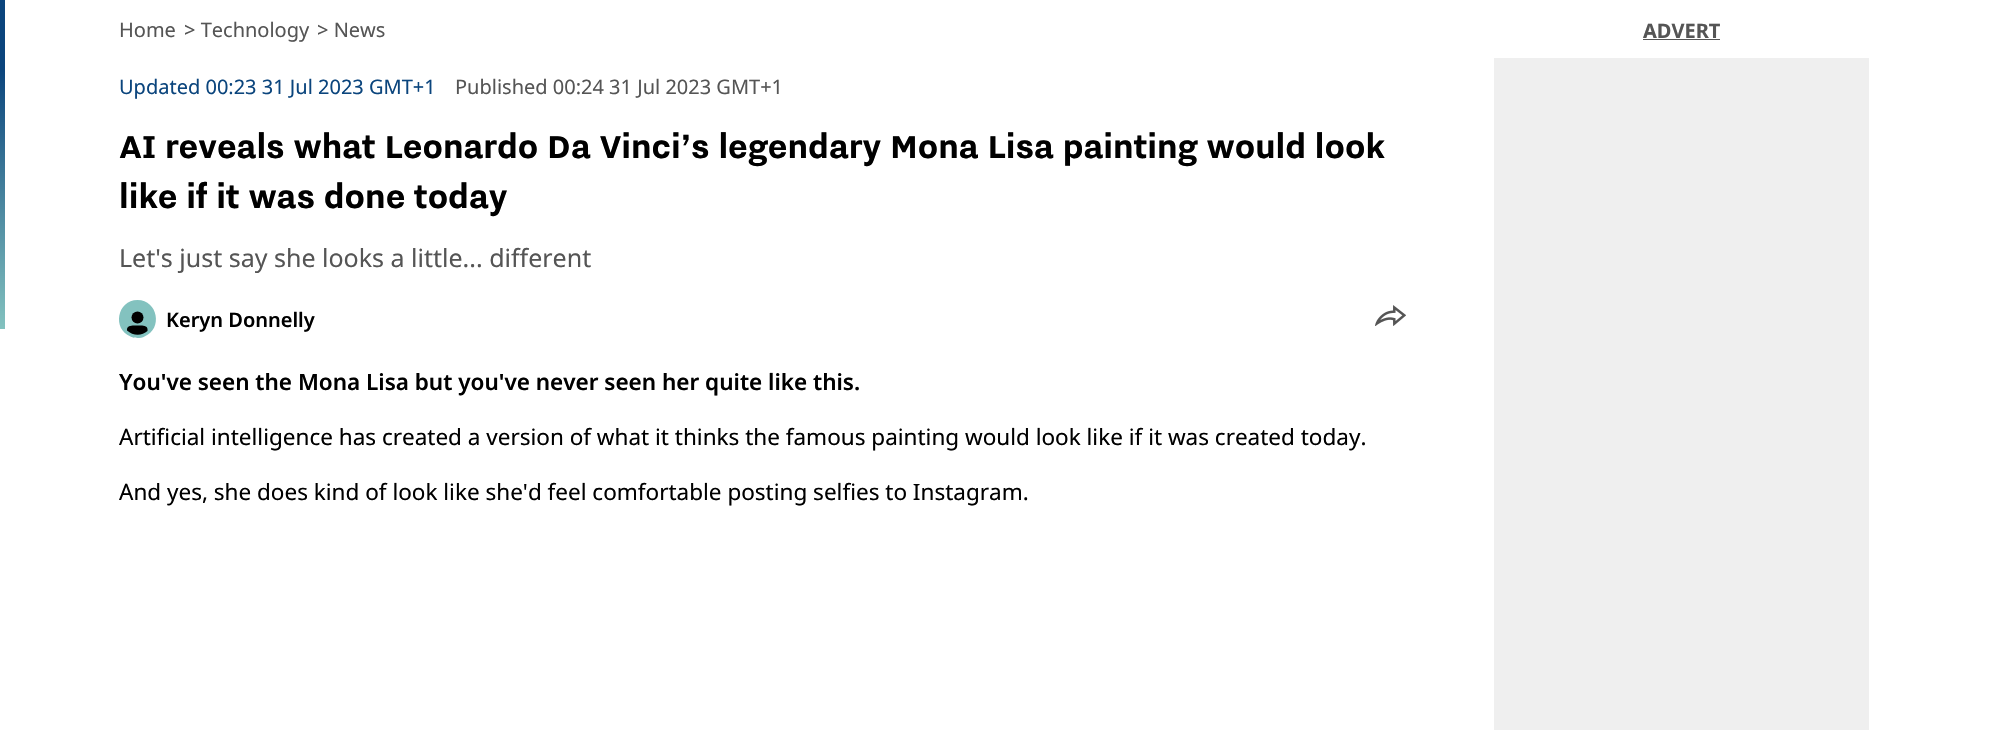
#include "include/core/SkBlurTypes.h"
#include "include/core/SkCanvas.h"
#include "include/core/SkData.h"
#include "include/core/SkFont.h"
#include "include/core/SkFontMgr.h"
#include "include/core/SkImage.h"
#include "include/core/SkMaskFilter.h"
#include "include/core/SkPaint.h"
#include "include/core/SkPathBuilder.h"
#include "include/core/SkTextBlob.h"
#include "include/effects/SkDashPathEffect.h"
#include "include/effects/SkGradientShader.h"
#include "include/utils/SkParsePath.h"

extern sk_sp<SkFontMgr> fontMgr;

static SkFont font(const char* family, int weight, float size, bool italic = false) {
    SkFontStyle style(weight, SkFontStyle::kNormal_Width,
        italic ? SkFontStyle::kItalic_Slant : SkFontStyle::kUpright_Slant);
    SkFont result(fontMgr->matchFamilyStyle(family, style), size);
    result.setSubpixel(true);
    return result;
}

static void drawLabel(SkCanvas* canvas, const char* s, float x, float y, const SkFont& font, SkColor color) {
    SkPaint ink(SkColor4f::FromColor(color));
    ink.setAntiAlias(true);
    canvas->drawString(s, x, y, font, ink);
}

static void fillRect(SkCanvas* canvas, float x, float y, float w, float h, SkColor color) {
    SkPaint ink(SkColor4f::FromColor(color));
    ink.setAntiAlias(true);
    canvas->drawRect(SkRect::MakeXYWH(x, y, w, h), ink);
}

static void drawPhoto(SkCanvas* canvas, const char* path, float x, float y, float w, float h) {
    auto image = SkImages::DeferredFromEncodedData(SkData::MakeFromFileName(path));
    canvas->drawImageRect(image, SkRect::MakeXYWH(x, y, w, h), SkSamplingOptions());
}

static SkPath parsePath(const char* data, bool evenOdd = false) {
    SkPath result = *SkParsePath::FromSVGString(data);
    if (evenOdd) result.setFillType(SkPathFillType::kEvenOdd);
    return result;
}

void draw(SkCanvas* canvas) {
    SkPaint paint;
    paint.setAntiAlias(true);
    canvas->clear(0xFFFFFFFF);
    {
        const SkColor colors[] = {0xFF0B457D, 0xFF83C2BF};
        const float stops[] = {0.21f, 1};
        const SkPoint ends[] = {{2.5f, 0}, {2.5f, 329}};
        paint.setShader(SkGradientShader::MakeLinear(ends, colors, stops, 2, SkTileMode::kClamp));
        paint.setAlpha(255);
    }
    canvas->drawRect(SkRect::MakeXYWH(0, 0, 5, 329), paint);
    SkFont font1 = font("Noto Sans", 400, 20);
    drawLabel(canvas, "Home", 119, 37, font1, 0xFF555555);
    drawLabel(canvas, "> Technology", 184, 37, font1, 0xFF555555);
    drawLabel(canvas, "> News", 317, 37, font1, 0xFF555555);
    drawLabel(canvas, "Updated 00:23 31 Jul 2023 GMT+1", 119, 94, font1, 0xFF0B457D);
    drawLabel(canvas, "Published 00:24 31 Jul 2023 GMT+1", 455, 94, font1, 0xFF555555);
    SkFont font2 = font("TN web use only", 700, 40);
    drawLabel(canvas, "AI reveals what Leonardo Da Vinci’s legendary Mona Lisa painting would look", 119, 158, font2, 0xFF000000);
    drawLabel(canvas, "like if it was done today", 119, 208, font2, 0xFF000000);
    SkFont font3 = font("Noto Sans", 400, 25);
    drawLabel(canvas, "Let's just say she looks a little... different", 119, 267, font3, 0xFF555555);
    paint.setShader(nullptr);
    paint.setColor(0xFF83C2BF);
    canvas->drawPath(parsePath("M137.5 300C158 300 163 329 144.5 336.5C143 337.5 139.5 338 137.5 338C134 337.5 133.5 338 130.5 336.5C112 329 117 300 137.5 300Z"), paint);
    paint.setColor(0xFF000000);
    canvas->drawCircle(137.5f, 317.5f, 6, paint);
    canvas->drawPath(parsePath("M147.5 331C142 336 133 336 127 330.5C126.5 324.5 133.5 325.5 137.5 325.5C141.5 325.5 148.5 324.5 147.5 331Z", true), paint);
    SkFont font4 = font("Noto Sans", 600, 20);
    drawLabel(canvas, "Keryn Donnelly", 166, 327, font4, 0xFF000000);
    drawPhoto(canvas, "assets/img1.png", 1375, 305, 31, 21);
    SkFont font5 = font("Noto Sans", 600, 22.5f);
    drawLabel(canvas, "You've seen the Mona Lisa but you've never seen her quite like this.", 119, 390, font5, 0xFF000000);
    SkFont font6 = font("Noto Sans", 400, 22.5f);
    drawLabel(canvas, "Artificial intelligence has created a version of what it thinks the famous painting would look like if it was created today.", 119, 445, font6, 0xFF000000);
    drawLabel(canvas, "And yes, she does kind of look like she'd feel comfortable posting selfies to Instagram.", 119, 500, font6, 0xFF000000);
    SkFont font7 = font("Noto Sans", 700, 20);
    drawLabel(canvas, "ADVERT", 1643, 38, font7, 0xFF555555);
    fillRect(canvas, 1643, 39, 77, 1, 0xFF555555);
    fillRect(canvas, 1494, 58, 375, 672, 0xFFEFEFEF);
}
